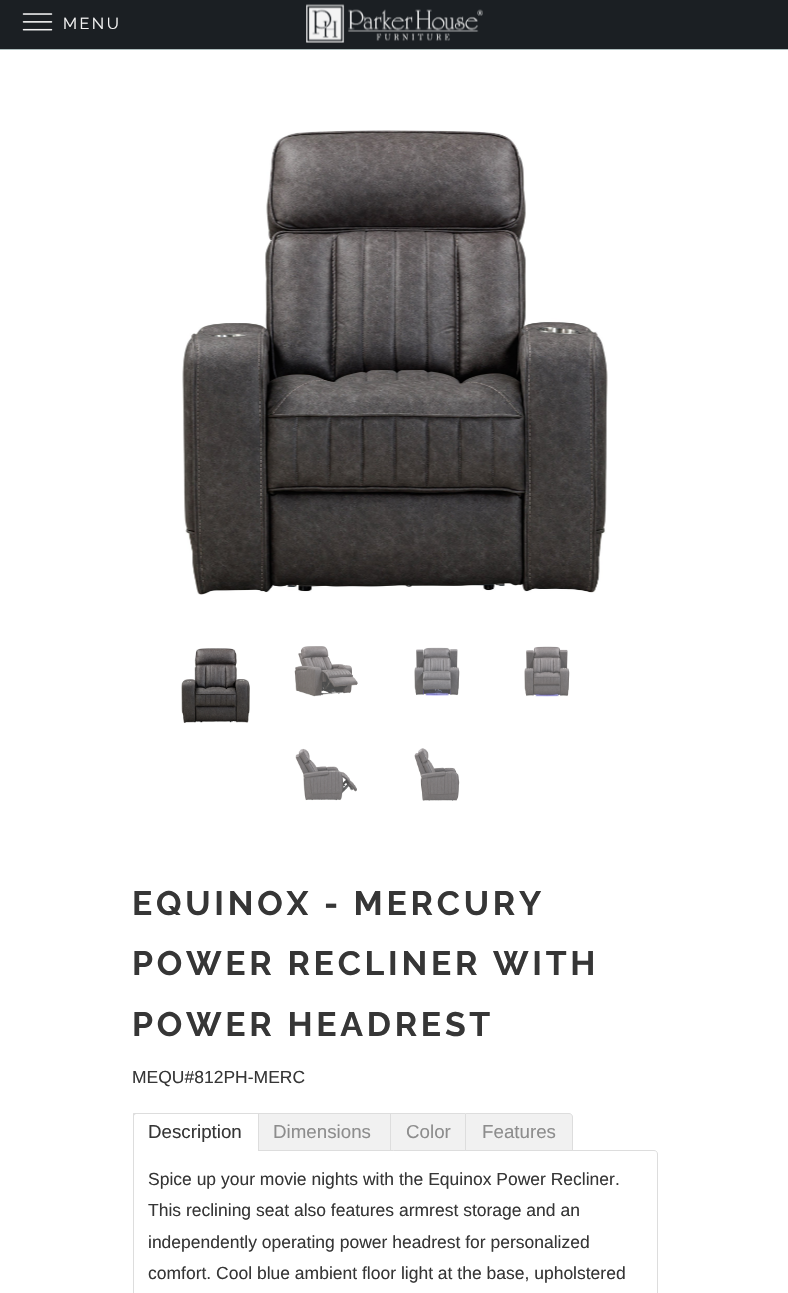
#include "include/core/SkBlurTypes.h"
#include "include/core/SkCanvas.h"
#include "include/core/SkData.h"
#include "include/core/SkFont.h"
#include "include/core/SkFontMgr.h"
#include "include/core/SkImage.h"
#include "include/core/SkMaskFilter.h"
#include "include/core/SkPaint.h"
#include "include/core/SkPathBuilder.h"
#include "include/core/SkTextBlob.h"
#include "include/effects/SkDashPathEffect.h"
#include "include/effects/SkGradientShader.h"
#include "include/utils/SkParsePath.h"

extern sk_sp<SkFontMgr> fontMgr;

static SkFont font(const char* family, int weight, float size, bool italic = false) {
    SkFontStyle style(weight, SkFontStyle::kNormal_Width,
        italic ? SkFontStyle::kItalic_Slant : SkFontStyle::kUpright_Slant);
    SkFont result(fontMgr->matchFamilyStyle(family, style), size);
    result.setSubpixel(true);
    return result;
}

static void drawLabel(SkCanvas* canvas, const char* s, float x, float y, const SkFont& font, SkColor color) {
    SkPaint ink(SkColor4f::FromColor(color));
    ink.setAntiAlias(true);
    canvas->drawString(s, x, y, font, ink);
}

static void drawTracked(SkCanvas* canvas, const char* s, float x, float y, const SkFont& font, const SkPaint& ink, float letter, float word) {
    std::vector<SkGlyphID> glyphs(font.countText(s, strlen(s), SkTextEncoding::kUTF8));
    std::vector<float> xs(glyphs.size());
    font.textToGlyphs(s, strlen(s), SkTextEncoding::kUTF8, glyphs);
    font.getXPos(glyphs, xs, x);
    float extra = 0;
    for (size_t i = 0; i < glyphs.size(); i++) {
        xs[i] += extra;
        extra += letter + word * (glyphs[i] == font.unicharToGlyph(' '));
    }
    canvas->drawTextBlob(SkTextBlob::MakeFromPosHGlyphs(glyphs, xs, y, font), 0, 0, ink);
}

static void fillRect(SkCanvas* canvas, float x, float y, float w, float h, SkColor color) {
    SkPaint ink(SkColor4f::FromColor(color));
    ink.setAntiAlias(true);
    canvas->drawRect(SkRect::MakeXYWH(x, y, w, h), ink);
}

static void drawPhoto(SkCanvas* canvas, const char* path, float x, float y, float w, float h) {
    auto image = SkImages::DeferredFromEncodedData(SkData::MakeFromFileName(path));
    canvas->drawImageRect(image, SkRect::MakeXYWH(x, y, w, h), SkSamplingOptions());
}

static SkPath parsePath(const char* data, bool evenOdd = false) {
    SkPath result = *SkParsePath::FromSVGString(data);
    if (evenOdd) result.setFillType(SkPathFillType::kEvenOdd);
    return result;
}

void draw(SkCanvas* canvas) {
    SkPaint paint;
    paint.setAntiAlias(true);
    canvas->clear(0xFF1B1F23);
    fillRect(canvas, 0, 49, 788, 1, 0xFFB0BEBE);
    drawPhoto(canvas, "assets/img1.png", 22, 13, 31, 18);
    SkFont font1 = font("Raleway", 400, 16);
    paint.setColor(0xFFF4F4F4);
    drawTracked(canvas, "MENU", 63, 29, font1, paint, 2.5f, 0);
    drawPhoto(canvas, "assets/img2.png", 306, 4, 177, 39);
    fillRect(canvas, 0, 50, 788, 1243, 0xFFFFFFFF);
    drawPhoto(canvas, "assets/img3.png", 182, 130, 426, 465);
    drawPhoto(canvas, "assets/img4.png", 181, 648, 69, 75);
    drawPhoto(canvas, "assets/img5.png", 294, 646, 64, 51);
    drawPhoto(canvas, "assets/img6.png", 414, 647, 46, 49);
    drawPhoto(canvas, "assets/img7.png", 524, 646, 46, 51);
    drawPhoto(canvas, "assets/img8.png", 295, 748, 62, 53);
    drawPhoto(canvas, "assets/img9.png", 414, 748, 46, 53);
    SkFont font2 = font("Raleway", 700, 33.75f);
    paint.setColor(0xFF363636);
    drawTracked(canvas, "EQUINOX - MERCURY", 132, 915, font2, paint, 3.75f, 0);
    drawTracked(canvas, "POWER RECLINER WITH", 132, 975, font2, paint, 3.75f, 0);
    drawTracked(canvas, "POWER HEADREST", 132, 1036, font2, paint, 3.75f, 0);
    SkFont font3 = font("Liberation Sans", 400, 17.5f);
    drawLabel(canvas, "MEQU#812PH-MERC", 132, 1083, font3, 0xFF363636);
    paint.setStroke(true);
    paint.setStrokeWidth(1);
    paint.setColor(0xFFDDDDDD);
    canvas->drawPath(parsePath("M133.5 1150.5H654C656 1150.5 657.5 1152 657.5 1154V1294C657.5 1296 656 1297.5 654 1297.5H137C135 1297.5 133.5 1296 133.5 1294Z"), paint);
    paint.setStroke(false);
    paint.setColor(0xFFFFFFFF);
    canvas->drawPath(parsePath("M136.5 1114H258V1151H134V1116.5C134 1115 135 1114 136.5 1114Z"), paint);
    canvas->save();
    canvas->clipRect(SkRect::MakeXYWH(133, 1113, 126, 38));
    paint.setColor(0xFFDDDDDD);
    canvas->drawPath(parsePath("M136 1112H259V1151H132V1116C132 1114 134 1112 136 1112ZM136 1114H258V1151H134V1116C134 1115 135 1114 136 1114Z", true), paint);
    canvas->restore();
    SkFont font4 = font("Liberation Sans", 400, 18.75f);
    drawLabel(canvas, "Description", 148, 1138, font4, 0xFF363636);
    fillRect(canvas, 259, 1114, 131, 36, 0xFFF1F1F1);
    fillRect(canvas, 259, 1113, 206, 1, 0xFFDDDDDD);
    drawLabel(canvas, "Dimensions", 273, 1138, font4, 0xFF8D8D8D);
    fillRect(canvas, 391, 1114, 74, 36, 0xFFF1F1F1);
    fillRect(canvas, 390, 1113, 1, 38, 0xFFDDDDDD);
    drawLabel(canvas, "Color", 406, 1138, font4, 0xFF8D8D8D);
    paint.setColor(0xFFF1F1F1);
    canvas->drawPath(parsePath("M465.5 1113.5H569C571 1113.5 572.5 1115 572.5 1117V1150.5H465.5Z"), paint);
    paint.setStroke(true);
    paint.setColor(0xFFDDDDDD);
    canvas->drawPath(parsePath("M465.5 1113.5H569C571 1113.5 572.5 1115 572.5 1117V1150.5H465.5Z"), paint);
    drawLabel(canvas, "Features", 482, 1138, font4, 0xFF8D8D8D);
    drawLabel(canvas, "Spice up your movie nights with the Equinox Power Recliner.", 148, 1185, font3, 0xFF363636);
    drawLabel(canvas, "This reclining seat also features armrest storage and an", 148, 1216, font3, 0xFF363636);
    drawLabel(canvas, "independently operating power headrest for personalized", 148, 1248, font3, 0xFF363636);
    drawLabel(canvas, "comfort. Cool blue ambient floor light at the base, upholstered", 148, 1279, font3, 0xFF363636);
}
